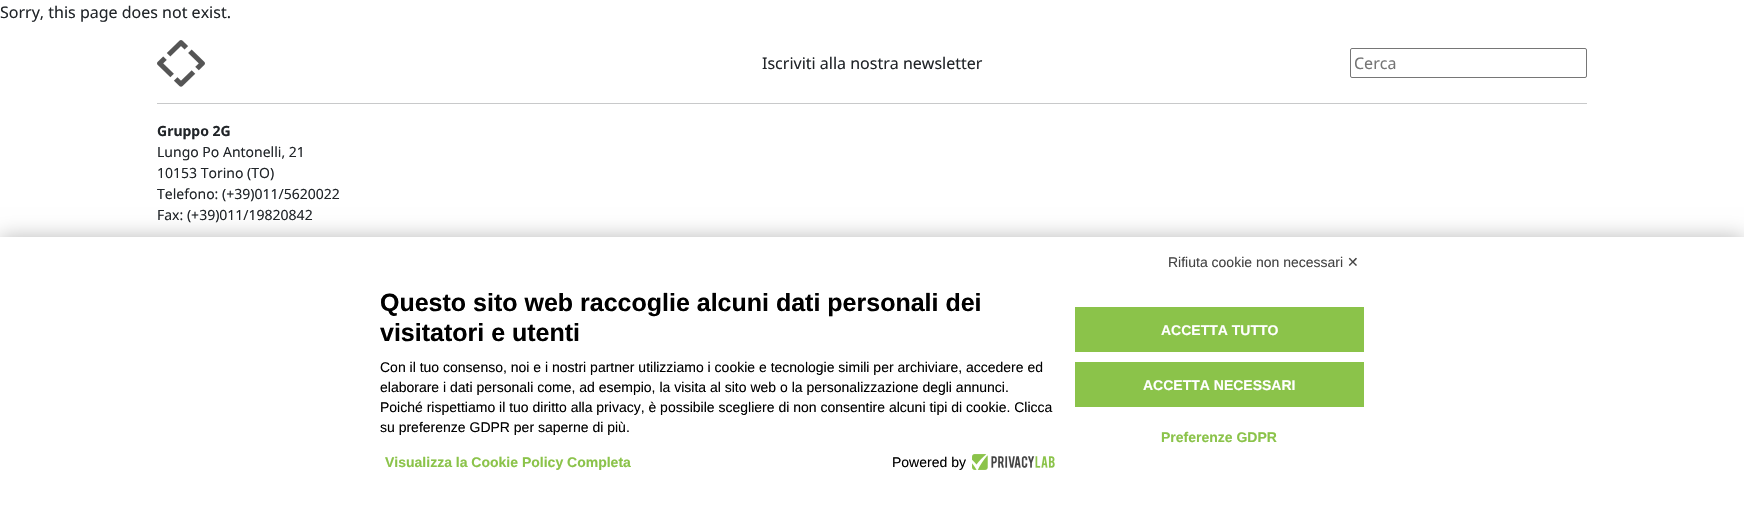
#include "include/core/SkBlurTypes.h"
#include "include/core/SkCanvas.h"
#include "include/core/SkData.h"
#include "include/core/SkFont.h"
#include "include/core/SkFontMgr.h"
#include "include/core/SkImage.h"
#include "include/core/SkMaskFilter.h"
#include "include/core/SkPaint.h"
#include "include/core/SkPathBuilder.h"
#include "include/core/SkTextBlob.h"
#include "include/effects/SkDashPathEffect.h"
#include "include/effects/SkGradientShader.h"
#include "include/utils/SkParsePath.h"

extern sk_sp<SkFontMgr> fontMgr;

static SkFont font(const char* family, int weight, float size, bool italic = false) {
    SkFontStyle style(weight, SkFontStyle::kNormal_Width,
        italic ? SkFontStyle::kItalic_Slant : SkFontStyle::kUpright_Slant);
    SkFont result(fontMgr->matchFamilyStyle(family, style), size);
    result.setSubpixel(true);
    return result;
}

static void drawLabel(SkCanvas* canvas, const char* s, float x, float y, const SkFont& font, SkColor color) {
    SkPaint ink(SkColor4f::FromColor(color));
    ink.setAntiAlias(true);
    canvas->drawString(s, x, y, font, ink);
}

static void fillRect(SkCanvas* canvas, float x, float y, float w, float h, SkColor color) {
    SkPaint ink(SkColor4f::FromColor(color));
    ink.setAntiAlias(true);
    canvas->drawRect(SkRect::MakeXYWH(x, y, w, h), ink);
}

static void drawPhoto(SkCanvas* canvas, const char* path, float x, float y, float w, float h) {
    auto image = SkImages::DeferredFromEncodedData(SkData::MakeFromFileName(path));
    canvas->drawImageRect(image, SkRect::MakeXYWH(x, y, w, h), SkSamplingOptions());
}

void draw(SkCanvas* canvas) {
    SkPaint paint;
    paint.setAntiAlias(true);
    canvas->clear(0xFFFFFFFF);
    SkFont font1 = font("Noto Sans", 400, 16);
    drawLabel(canvas, "Sorry, this page does not exist.", 0, 18, font1, 0xFF212529);
    drawPhoto(canvas, "assets/img1.png", 157, 40, 48, 47);
    drawLabel(canvas, "Iscriviti alla nostra newsletter", 762, 69, font1, 0xFF212529);
    paint.setStroke(true);
    paint.setStrokeWidth(1);
    paint.setColor(0xFF767676);
    canvas->drawRoundRect(SkRect::MakeXYWH(1350.5f, 48.5f, 236, 29), 1.5f, 1.5f, paint);
    drawLabel(canvas, "Cerca", 1354, 69, font1, 0xFF757575);
    fillRect(canvas, 157, 103, 1430, 1, 0xFFC8C9CA);
    SkFont font2 = font("Noto Sans", 700, 14);
    drawLabel(canvas, "Gruppo 2G", 157, 136, font2, 0xFF212529);
    SkFont font3 = font("Noto Sans", 400, 14);
    drawLabel(canvas, "Lungo Po Antonelli, 21", 157, 157, font3, 0xFF212529);
    drawLabel(canvas, "10153 Torino (TO)", 157, 178, font3, 0xFF212529);
    drawLabel(canvas, "Telefono: (+39)011/5620022", 157, 199, font3, 0xFF212529);
    drawLabel(canvas, "Fax: (+39)011/19820842", 157, 220, font3, 0xFF212529);
    paint.setStroke(false);
    paint.setColor(0x45000000);
    paint.setMaskFilter(SkMaskFilter::MakeBlur(kNormal_SkBlurStyle, 10));
    canvas->drawRect(SkRect::MakeXYWH(0, 237, 1744, 282), paint);
    paint.setMaskFilter(nullptr);
    fillRect(canvas, 0, 237, 1744, 282, 0xFFFFFFFF);
    SkFont font4 = font("Liberation Sans", 400, 14);
    drawLabel(canvas, "Rifiuta cookie non necessari", 1168, 267, font4, 0xFF444444);
    SkFont font5 = font("DejaVu Sans", 400, 14);
    drawLabel(canvas, "✕", 1347, 267, font5, 0xFF444444);
    SkFont font6 = font("Liberation Sans", 700, 25);
    drawLabel(canvas, "Questo sito web raccoglie alcuni dati personali dei", 380, 311, font6, 0xFF000000);
    drawLabel(canvas, "visitatori e utenti", 380, 341, font6, 0xFF000000);
    drawLabel(canvas, "Con il tuo consenso, noi e i nostri partner utilizziamo i cookie e tecnologie simili per archiviare, accedere ed", 380, 372, font4, 0xFF000000);
    drawLabel(canvas, "elaborare i dati personali come, ad esempio, la visita al sito web o la personalizzazione degli annunci.", 380, 392, font4, 0xFF000000);
    drawLabel(canvas, "Poiché rispettiamo il tuo diritto alla privacy, è possibile scegliere di non consentire alcuni tipi di cookie. Clicca", 380, 412, font4, 0xFF000000);
    drawLabel(canvas, "su preferenze GDPR per saperne di più.", 380, 432, font4, 0xFF000000);
    SkFont font7 = font("Liberation Sans", 700, 14);
    drawLabel(canvas, "Visualizza la Cookie Policy Completa", 385, 467, font7, 0xFF8BC34A);
    drawLabel(canvas, "Powered by", 892, 467, font4, 0xFF000000);
    drawPhoto(canvas, "assets/img2.png", 972, 454, 83, 16);
    fillRect(canvas, 1075, 307, 289, 45, 0xFF8BC34A);
    drawLabel(canvas, "ACCETTA TUTTO", 1161, 335, font7, 0xFFFFFFFF);
    fillRect(canvas, 1075, 362, 289, 45, 0xFF8BC34A);
    drawLabel(canvas, "ACCETTA NECESSARI", 1143, 390, font7, 0xFFFFFFFF);
    drawLabel(canvas, "Preferenze GDPR", 1161, 442, font7, 0xFF8BC34A);
}
